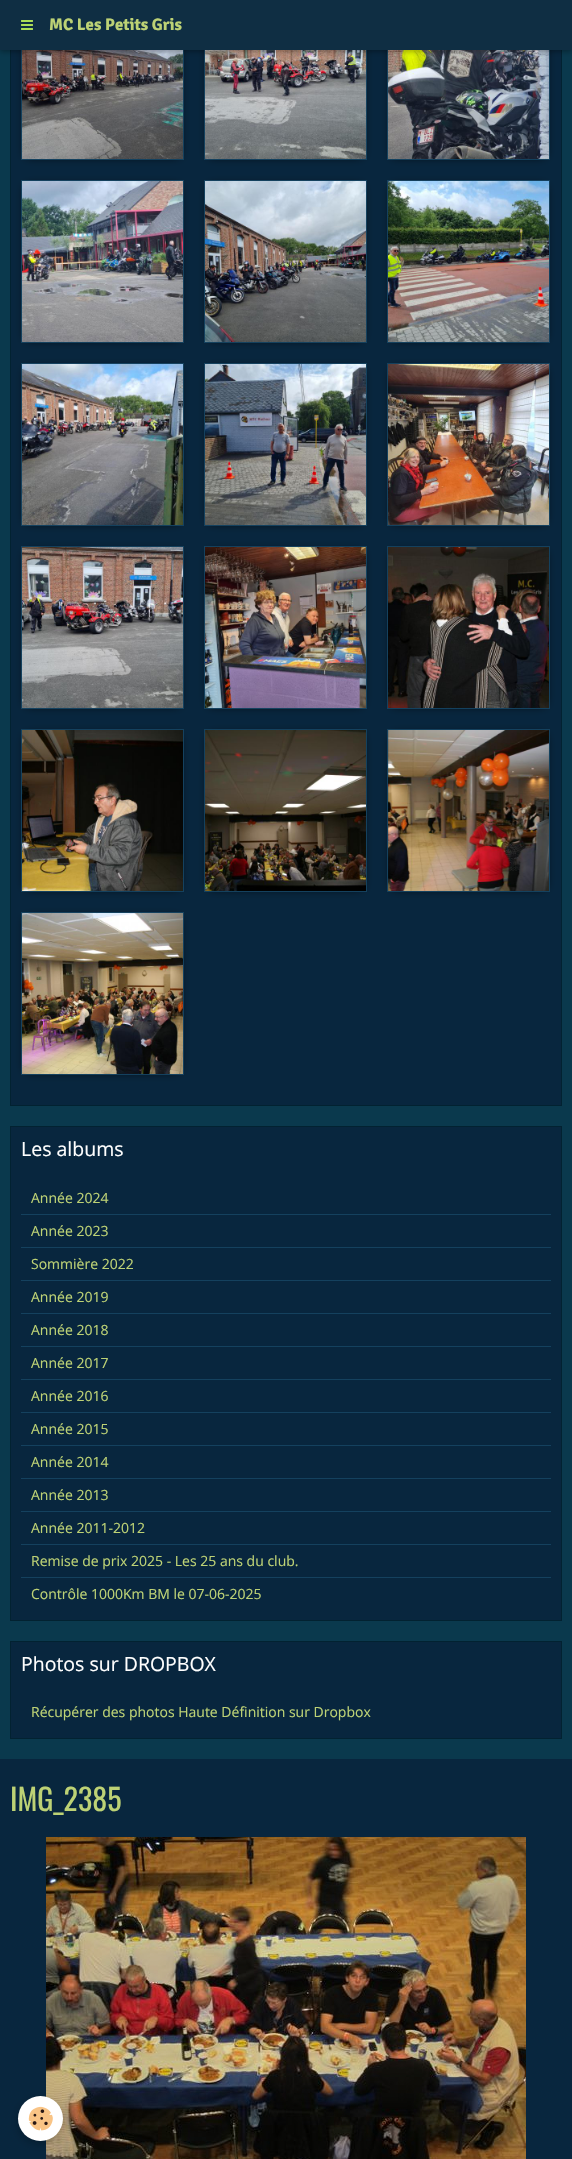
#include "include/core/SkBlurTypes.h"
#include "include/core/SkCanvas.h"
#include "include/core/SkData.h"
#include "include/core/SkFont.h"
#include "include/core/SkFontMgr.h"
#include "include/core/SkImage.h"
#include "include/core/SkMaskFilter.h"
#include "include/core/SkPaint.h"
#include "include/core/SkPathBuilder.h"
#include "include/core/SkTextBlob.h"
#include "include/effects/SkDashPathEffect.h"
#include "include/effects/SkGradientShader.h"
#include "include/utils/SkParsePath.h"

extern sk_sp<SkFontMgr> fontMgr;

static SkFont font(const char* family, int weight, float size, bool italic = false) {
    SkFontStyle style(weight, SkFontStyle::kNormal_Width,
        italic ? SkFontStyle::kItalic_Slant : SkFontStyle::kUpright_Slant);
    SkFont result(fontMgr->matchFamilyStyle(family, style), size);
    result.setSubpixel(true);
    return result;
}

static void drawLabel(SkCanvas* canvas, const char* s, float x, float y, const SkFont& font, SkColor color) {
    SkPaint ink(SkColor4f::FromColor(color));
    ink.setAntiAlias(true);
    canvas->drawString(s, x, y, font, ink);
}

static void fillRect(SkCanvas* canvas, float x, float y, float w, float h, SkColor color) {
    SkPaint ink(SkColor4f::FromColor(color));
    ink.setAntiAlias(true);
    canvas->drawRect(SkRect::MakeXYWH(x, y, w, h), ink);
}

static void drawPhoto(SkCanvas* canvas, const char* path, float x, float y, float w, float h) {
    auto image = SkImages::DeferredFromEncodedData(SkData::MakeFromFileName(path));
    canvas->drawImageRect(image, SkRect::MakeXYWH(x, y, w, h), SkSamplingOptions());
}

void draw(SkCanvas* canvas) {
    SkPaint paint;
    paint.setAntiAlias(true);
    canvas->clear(0xFF08263E);
    fillRect(canvas, 0, 50, 572, 1709, 0xFF0A394D);
    fillRect(canvas, 11, 50, 550, 1055, 0xFF08263E);
    paint.setStroke(true);
    paint.setStrokeWidth(1);
    paint.setColor(0xFF022231);
    canvas->drawRect(SkRect::MakeXYWH(10.5f, -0.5f, 551, 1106), paint);
    paint.setStroke(false);
    paint.setColor(0xFF000000);
    paint.setMaskFilter(SkMaskFilter::MakeBlur(kNormal_SkBlurStyle, 5));
    canvas->drawRect(SkRect::MakeXYWH(26, 3, 153, 153), paint);
    paint.setMaskFilter(nullptr);
    paint.setStroke(true);
    paint.setColor(0xFF14415E);
    canvas->drawRect(SkRect::MakeXYWH(21.5f, -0.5f, 162, 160), paint);
    drawPhoto(canvas, "assets/img2.png", 22, 50, 161, 109);
    paint.setStroke(false);
    paint.setColor(0xFF000000);
    paint.setMaskFilter(SkMaskFilter::MakeBlur(kNormal_SkBlurStyle, 5));
    canvas->drawRect(SkRect::MakeXYWH(209, 3, 153, 153), paint);
    paint.setMaskFilter(nullptr);
    paint.setStroke(true);
    paint.setColor(0xFF14415E);
    canvas->drawRect(SkRect::MakeXYWH(204.5f, -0.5f, 162, 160), paint);
    drawPhoto(canvas, "assets/img3.png", 205, 50, 161, 109);
    paint.setStroke(false);
    paint.setColor(0xFF000000);
    paint.setMaskFilter(SkMaskFilter::MakeBlur(kNormal_SkBlurStyle, 5));
    canvas->drawRect(SkRect::MakeXYWH(392, 3, 153, 153), paint);
    paint.setMaskFilter(nullptr);
    paint.setStroke(true);
    paint.setColor(0xFF14415E);
    canvas->drawRect(SkRect::MakeXYWH(387.5f, -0.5f, 162, 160), paint);
    drawPhoto(canvas, "assets/img4.png", 388, 50, 161, 109);
    paint.setStroke(false);
    paint.setColor(0x4D000000);
    paint.setMaskFilter(SkMaskFilter::MakeBlur(kNormal_SkBlurStyle, 2.5f));
    canvas->drawRect(SkRect::MakeXYWH(0, 2, 572, 50), paint);
    paint.setMaskFilter(nullptr);
    fillRect(canvas, 0, 0, 572, 50, 0xFF0F2E43);
    drawPhoto(canvas, "assets/img1.png", 21, 20, 12, 10);
    SkFont font1 = font("Signika", 700, 16.75f);
    drawLabel(canvas, "MC Les Petits Gris", 49, 30, font1, 0xFFBDD275);
    paint.setColor(0xFF000000);
    paint.setMaskFilter(SkMaskFilter::MakeBlur(kNormal_SkBlurStyle, 5));
    canvas->drawRect(SkRect::MakeXYWH(26, 186, 153, 153), paint);
    paint.setMaskFilter(nullptr);
    paint.setStroke(true);
    paint.setColor(0xFF14415E);
    canvas->drawRect(SkRect::MakeXYWH(21.5f, 180.5f, 162, 162), paint);
    drawPhoto(canvas, "assets/img5.png", 22, 181, 161, 161);
    paint.setStroke(false);
    paint.setColor(0xFF000000);
    paint.setMaskFilter(SkMaskFilter::MakeBlur(kNormal_SkBlurStyle, 5));
    canvas->drawRect(SkRect::MakeXYWH(209, 186, 153, 153), paint);
    paint.setMaskFilter(nullptr);
    paint.setStroke(true);
    paint.setColor(0xFF14415E);
    canvas->drawRect(SkRect::MakeXYWH(204.5f, 180.5f, 162, 162), paint);
    drawPhoto(canvas, "assets/img6.png", 205, 181, 161, 161);
    paint.setStroke(false);
    paint.setColor(0xFF000000);
    paint.setMaskFilter(SkMaskFilter::MakeBlur(kNormal_SkBlurStyle, 5));
    canvas->drawRect(SkRect::MakeXYWH(392, 186, 153, 153), paint);
    paint.setMaskFilter(nullptr);
    paint.setStroke(true);
    paint.setColor(0xFF14415E);
    canvas->drawRect(SkRect::MakeXYWH(387.5f, 180.5f, 162, 162), paint);
    drawPhoto(canvas, "assets/img7.png", 388, 181, 161, 161);
    paint.setStroke(false);
    paint.setColor(0xFF000000);
    paint.setMaskFilter(SkMaskFilter::MakeBlur(kNormal_SkBlurStyle, 5));
    canvas->drawRect(SkRect::MakeXYWH(26, 369, 153, 153), paint);
    paint.setMaskFilter(nullptr);
    paint.setStroke(true);
    paint.setColor(0xFF14415E);
    canvas->drawRect(SkRect::MakeXYWH(21.5f, 363.5f, 162, 162), paint);
    drawPhoto(canvas, "assets/img8.png", 22, 364, 161, 161);
    paint.setStroke(false);
    paint.setColor(0xFF000000);
    paint.setMaskFilter(SkMaskFilter::MakeBlur(kNormal_SkBlurStyle, 5));
    canvas->drawRect(SkRect::MakeXYWH(209, 369, 153, 153), paint);
    paint.setMaskFilter(nullptr);
    paint.setStroke(true);
    paint.setColor(0xFF14415E);
    canvas->drawRect(SkRect::MakeXYWH(204.5f, 363.5f, 162, 162), paint);
    drawPhoto(canvas, "assets/img9.png", 205, 364, 161, 161);
    paint.setStroke(false);
    paint.setColor(0xFF000000);
    paint.setMaskFilter(SkMaskFilter::MakeBlur(kNormal_SkBlurStyle, 5));
    canvas->drawRect(SkRect::MakeXYWH(392, 369, 153, 153), paint);
    paint.setMaskFilter(nullptr);
    paint.setStroke(true);
    paint.setColor(0xFF14415E);
    canvas->drawRect(SkRect::MakeXYWH(387.5f, 363.5f, 162, 162), paint);
    drawPhoto(canvas, "assets/img10.png", 388, 364, 161, 161);
    paint.setStroke(false);
    paint.setColor(0xFF000000);
    paint.setMaskFilter(SkMaskFilter::MakeBlur(kNormal_SkBlurStyle, 5));
    canvas->drawRect(SkRect::MakeXYWH(26, 552, 153, 153), paint);
    paint.setMaskFilter(nullptr);
    paint.setStroke(true);
    paint.setColor(0xFF14415E);
    canvas->drawRect(SkRect::MakeXYWH(21.5f, 546.5f, 162, 162), paint);
    drawPhoto(canvas, "assets/img11.png", 22, 547, 161, 161);
    paint.setStroke(false);
    paint.setColor(0xFF000000);
    paint.setMaskFilter(SkMaskFilter::MakeBlur(kNormal_SkBlurStyle, 5));
    canvas->drawRect(SkRect::MakeXYWH(209, 552, 153, 153), paint);
    paint.setMaskFilter(nullptr);
    paint.setStroke(true);
    paint.setColor(0xFF14415E);
    canvas->drawRect(SkRect::MakeXYWH(204.5f, 546.5f, 162, 162), paint);
    drawPhoto(canvas, "assets/img12.png", 205, 547, 161, 161);
    paint.setStroke(false);
    paint.setColor(0xFF000000);
    paint.setMaskFilter(SkMaskFilter::MakeBlur(kNormal_SkBlurStyle, 5));
    canvas->drawRect(SkRect::MakeXYWH(392, 552, 153, 153), paint);
    paint.setMaskFilter(nullptr);
    paint.setStroke(true);
    paint.setColor(0xFF14415E);
    canvas->drawRect(SkRect::MakeXYWH(387.5f, 546.5f, 162, 162), paint);
    drawPhoto(canvas, "assets/img13.png", 388, 547, 161, 161);
    paint.setStroke(false);
    paint.setColor(0xFF000000);
    paint.setMaskFilter(SkMaskFilter::MakeBlur(kNormal_SkBlurStyle, 5));
    canvas->drawRect(SkRect::MakeXYWH(26, 735, 153, 153), paint);
    paint.setMaskFilter(nullptr);
    paint.setStroke(true);
    paint.setColor(0xFF14415E);
    canvas->drawRect(SkRect::MakeXYWH(21.5f, 729.5f, 162, 162), paint);
    drawPhoto(canvas, "assets/img14.png", 22, 730, 161, 161);
    paint.setStroke(false);
    paint.setColor(0xFF000000);
    paint.setMaskFilter(SkMaskFilter::MakeBlur(kNormal_SkBlurStyle, 5));
    canvas->drawRect(SkRect::MakeXYWH(209, 735, 153, 153), paint);
    paint.setMaskFilter(nullptr);
    paint.setStroke(true);
    paint.setColor(0xFF14415E);
    canvas->drawRect(SkRect::MakeXYWH(204.5f, 729.5f, 162, 162), paint);
    drawPhoto(canvas, "assets/img15.png", 205, 730, 161, 161);
    paint.setStroke(false);
    paint.setColor(0xFF000000);
    paint.setMaskFilter(SkMaskFilter::MakeBlur(kNormal_SkBlurStyle, 5));
    canvas->drawRect(SkRect::MakeXYWH(392, 735, 153, 153), paint);
    paint.setMaskFilter(nullptr);
    paint.setStroke(true);
    paint.setColor(0xFF14415E);
    canvas->drawRect(SkRect::MakeXYWH(387.5f, 729.5f, 162, 162), paint);
    drawPhoto(canvas, "assets/img16.png", 388, 730, 161, 161);
    paint.setStroke(false);
    paint.setColor(0xFF000000);
    paint.setMaskFilter(SkMaskFilter::MakeBlur(kNormal_SkBlurStyle, 5));
    canvas->drawRect(SkRect::MakeXYWH(26, 918, 153, 153), paint);
    paint.setMaskFilter(nullptr);
    paint.setStroke(true);
    paint.setColor(0xFF14415E);
    canvas->drawRect(SkRect::MakeXYWH(21.5f, 912.5f, 162, 162), paint);
    drawPhoto(canvas, "assets/img17.png", 22, 913, 161, 161);
    paint.setStroke(false);
    paint.setColor(0xFF08263E);
    canvas->drawRect(SkRect::MakeXYWH(10.5f, 1126.5f, 551, 494), paint);
    paint.setStroke(true);
    paint.setColor(0xFF022231);
    canvas->drawRect(SkRect::MakeXYWH(10.5f, 1126.5f, 551, 494), paint);
    SkFont font2 = font("Open Sans", 400, 19.5f);
    drawLabel(canvas, "Les albums", 21, 1156, font2, 0xFFFFFFFF);
    fillRect(canvas, 21, 1214, 530, 1, 0xFF14415E);
    SkFont font3 = font("Open Sans", 400, 14);
    drawLabel(canvas, "Année 2024", 31, 1203, font3, 0xFFBDD275);
    fillRect(canvas, 21, 1247, 530, 1, 0xFF14415E);
    drawLabel(canvas, "Année 2023", 31, 1236, font3, 0xFFBDD275);
    fillRect(canvas, 21, 1280, 530, 1, 0xFF14415E);
    drawLabel(canvas, "Sommière 2022", 31, 1269, font3, 0xFFBDD275);
    fillRect(canvas, 21, 1313, 530, 1, 0xFF14415E);
    drawLabel(canvas, "Année 2019", 31, 1302, font3, 0xFFBDD275);
    fillRect(canvas, 21, 1346, 530, 1, 0xFF14415E);
    drawLabel(canvas, "Année 2018", 31, 1335, font3, 0xFFBDD275);
    fillRect(canvas, 21, 1379, 530, 1, 0xFF14415E);
    drawLabel(canvas, "Année 2017", 31, 1368, font3, 0xFFBDD275);
    fillRect(canvas, 21, 1412, 530, 1, 0xFF14415E);
    drawLabel(canvas, "Année 2016", 31, 1401, font3, 0xFFBDD275);
    fillRect(canvas, 21, 1445, 530, 1, 0xFF14415E);
    drawLabel(canvas, "Année 2015", 31, 1434, font3, 0xFFBDD275);
    fillRect(canvas, 21, 1478, 530, 1, 0xFF14415E);
    drawLabel(canvas, "Année 2014", 31, 1467, font3, 0xFFBDD275);
    fillRect(canvas, 21, 1511, 530, 1, 0xFF14415E);
    drawLabel(canvas, "Année 2013", 31, 1500, font3, 0xFFBDD275);
    fillRect(canvas, 21, 1544, 530, 1, 0xFF14415E);
    drawLabel(canvas, "Année 2011-2012", 31, 1533, font3, 0xFFBDD275);
    fillRect(canvas, 21, 1577, 530, 1, 0xFF14415E);
    drawLabel(canvas, "Remise de prix 2025 - Les 25 ans du club.", 31, 1566, font3, 0xFFBDD275);
    drawLabel(canvas, "Contrôle 1000Km BM le 07-06-2025", 31, 1599, font3, 0xFFBDD275);
    paint.setStroke(false);
    paint.setColor(0xFF08263E);
    canvas->drawRect(SkRect::MakeXYWH(10.5f, 1641.5f, 551, 97), paint);
    paint.setStroke(true);
    paint.setColor(0xFF022231);
    canvas->drawRect(SkRect::MakeXYWH(10.5f, 1641.5f, 551, 97), paint);
    drawLabel(canvas, "Photos sur DROPBOX", 21, 1671, font2, 0xFFFFFFFF);
    drawLabel(canvas, "Récupérer des photos Haute Définition sur Dropbox", 31, 1717, font3, 0xFFBDD275);
    SkFont font4 = font("Oswald", 400, 30);
    drawLabel(canvas, "IMG_2385", 10, 1811, font4, 0xFFBDD275);
    drawPhoto(canvas, "assets/img18.png", 46, 1837, 480, 322);
    paint.setStroke(false);
    paint.setColor(0x3D000000);
    paint.setMaskFilter(SkMaskFilter::MakeBlur(kNormal_SkBlurStyle, 5));
    canvas->drawRoundRect(SkRect::MakeXYWH(18, 2099, 45, 45), 22.5f, 22.5f, paint);
    paint.setMaskFilter(nullptr);
    paint.setColor(0xFFFFFFFF);
    canvas->drawCircle(40.5f, 2118.5f, 22.5f, paint);
    drawPhoto(canvas, "assets/img19.png", 28, 2106, 25, 25);
}
